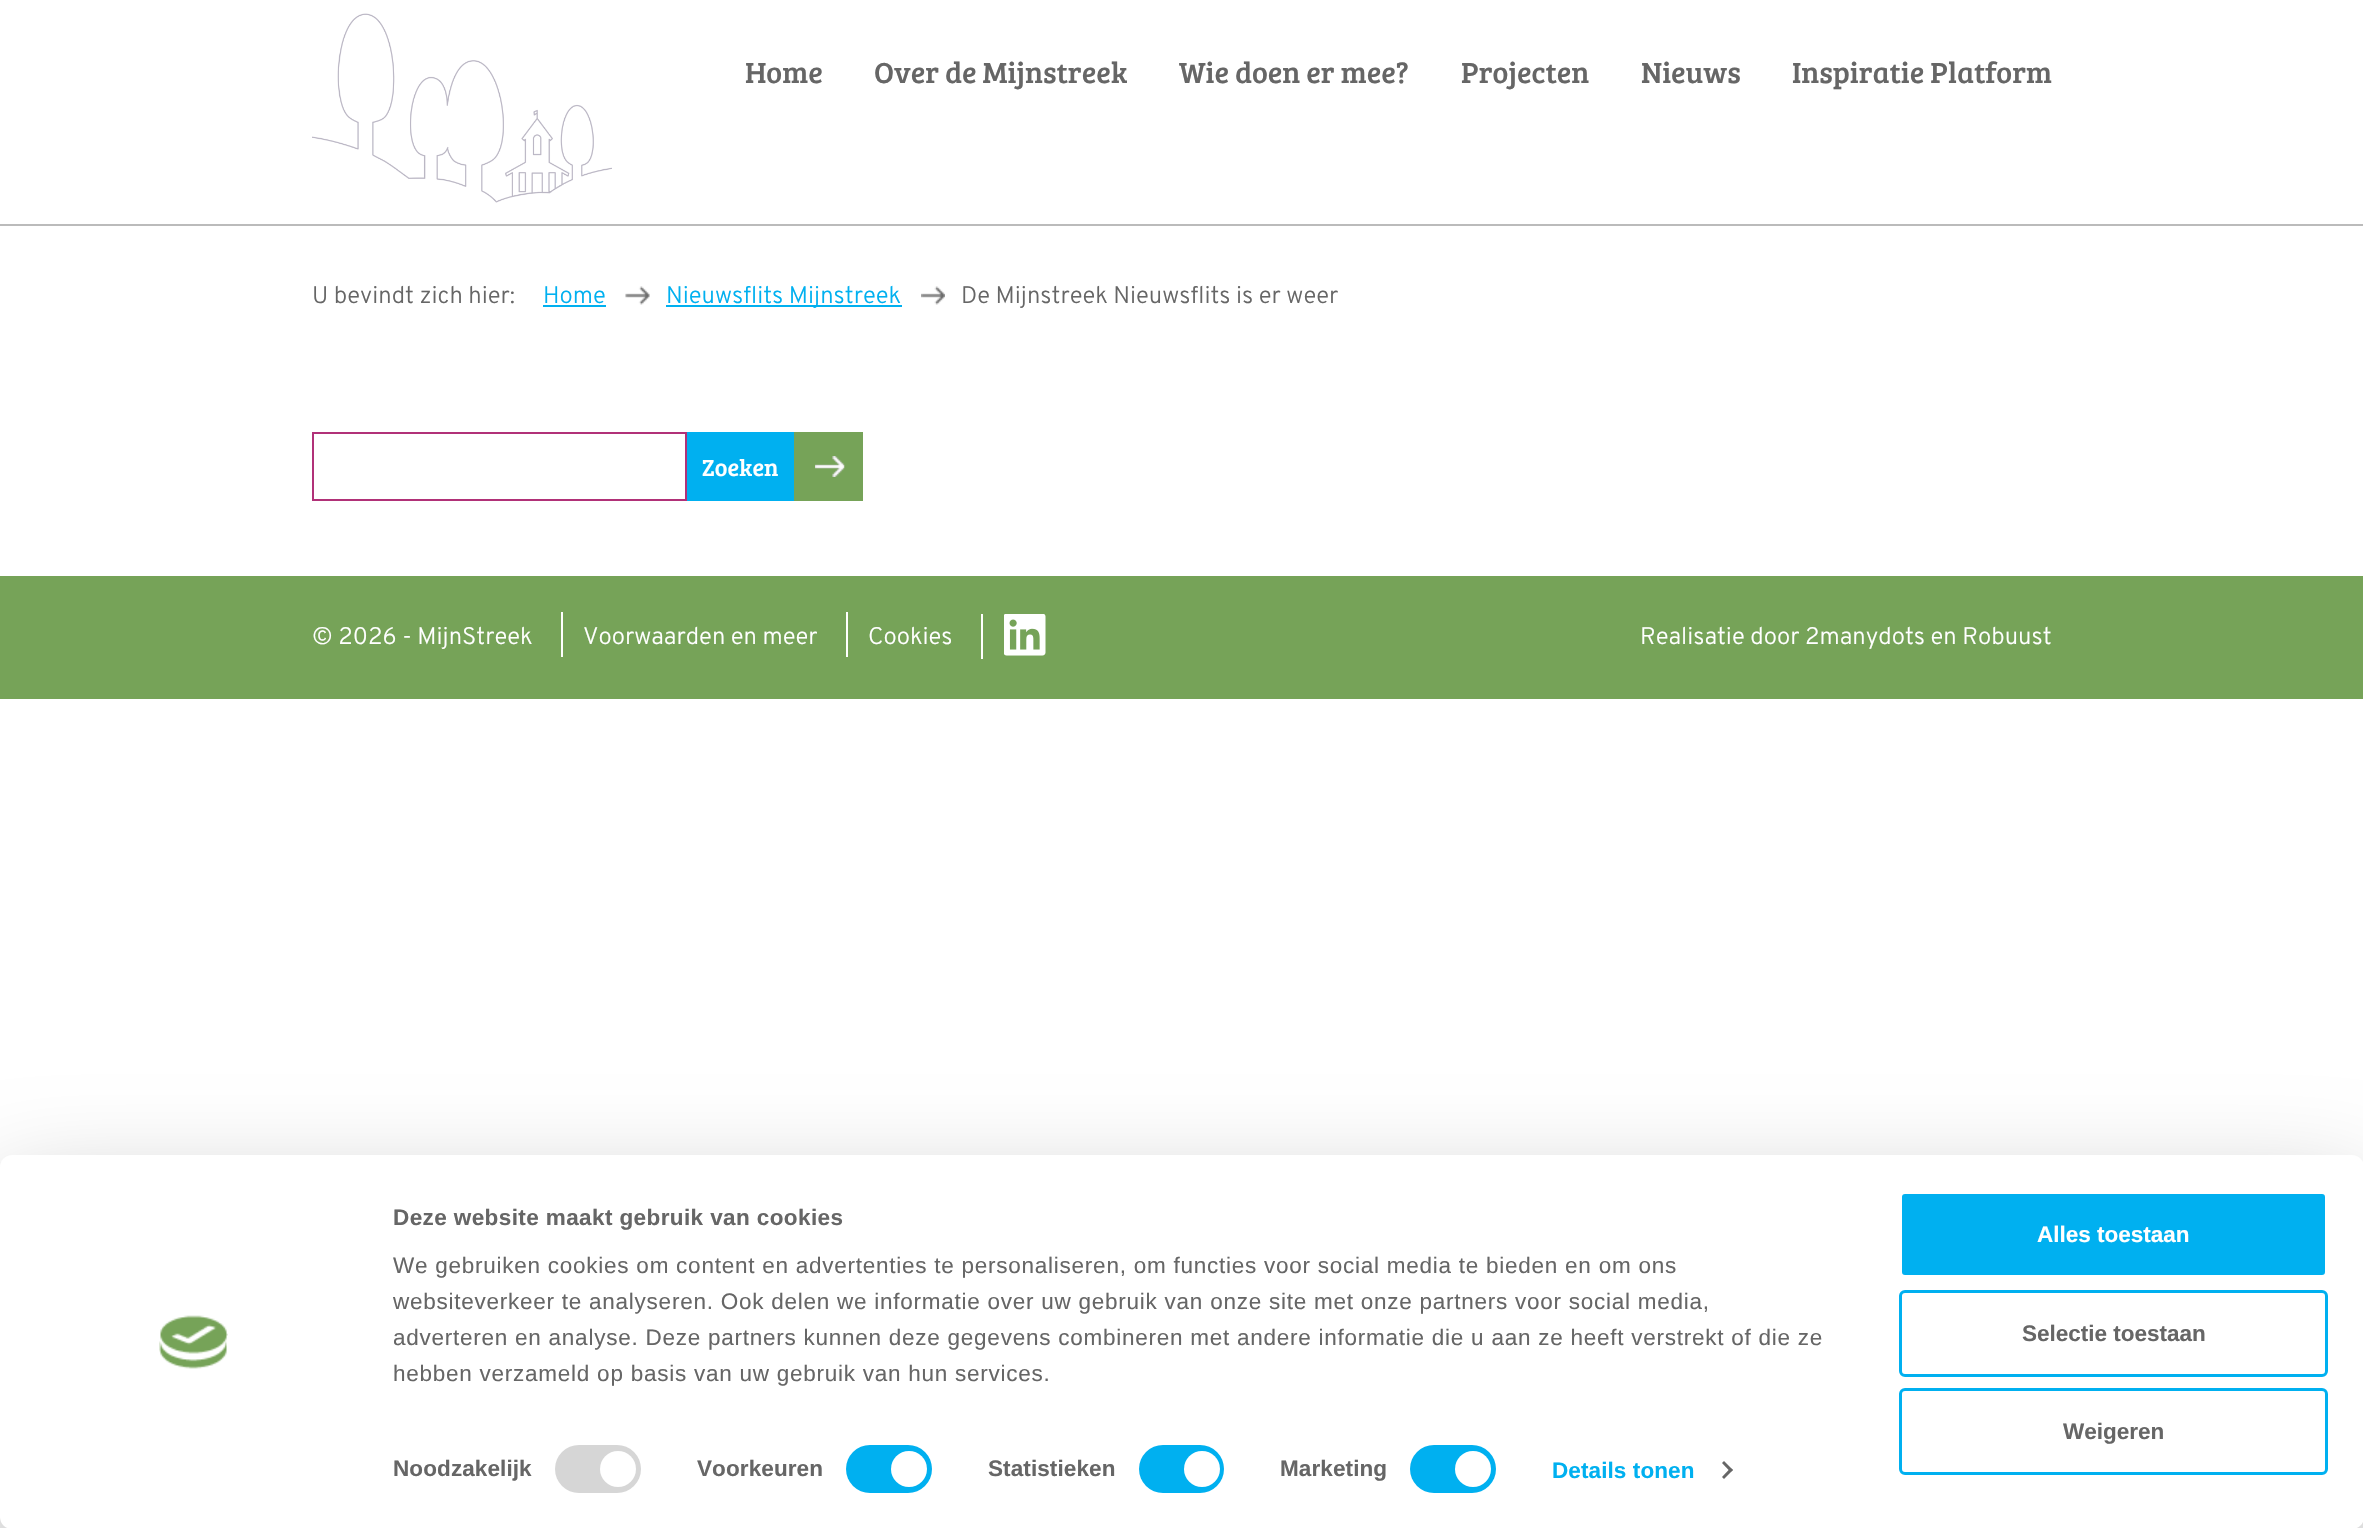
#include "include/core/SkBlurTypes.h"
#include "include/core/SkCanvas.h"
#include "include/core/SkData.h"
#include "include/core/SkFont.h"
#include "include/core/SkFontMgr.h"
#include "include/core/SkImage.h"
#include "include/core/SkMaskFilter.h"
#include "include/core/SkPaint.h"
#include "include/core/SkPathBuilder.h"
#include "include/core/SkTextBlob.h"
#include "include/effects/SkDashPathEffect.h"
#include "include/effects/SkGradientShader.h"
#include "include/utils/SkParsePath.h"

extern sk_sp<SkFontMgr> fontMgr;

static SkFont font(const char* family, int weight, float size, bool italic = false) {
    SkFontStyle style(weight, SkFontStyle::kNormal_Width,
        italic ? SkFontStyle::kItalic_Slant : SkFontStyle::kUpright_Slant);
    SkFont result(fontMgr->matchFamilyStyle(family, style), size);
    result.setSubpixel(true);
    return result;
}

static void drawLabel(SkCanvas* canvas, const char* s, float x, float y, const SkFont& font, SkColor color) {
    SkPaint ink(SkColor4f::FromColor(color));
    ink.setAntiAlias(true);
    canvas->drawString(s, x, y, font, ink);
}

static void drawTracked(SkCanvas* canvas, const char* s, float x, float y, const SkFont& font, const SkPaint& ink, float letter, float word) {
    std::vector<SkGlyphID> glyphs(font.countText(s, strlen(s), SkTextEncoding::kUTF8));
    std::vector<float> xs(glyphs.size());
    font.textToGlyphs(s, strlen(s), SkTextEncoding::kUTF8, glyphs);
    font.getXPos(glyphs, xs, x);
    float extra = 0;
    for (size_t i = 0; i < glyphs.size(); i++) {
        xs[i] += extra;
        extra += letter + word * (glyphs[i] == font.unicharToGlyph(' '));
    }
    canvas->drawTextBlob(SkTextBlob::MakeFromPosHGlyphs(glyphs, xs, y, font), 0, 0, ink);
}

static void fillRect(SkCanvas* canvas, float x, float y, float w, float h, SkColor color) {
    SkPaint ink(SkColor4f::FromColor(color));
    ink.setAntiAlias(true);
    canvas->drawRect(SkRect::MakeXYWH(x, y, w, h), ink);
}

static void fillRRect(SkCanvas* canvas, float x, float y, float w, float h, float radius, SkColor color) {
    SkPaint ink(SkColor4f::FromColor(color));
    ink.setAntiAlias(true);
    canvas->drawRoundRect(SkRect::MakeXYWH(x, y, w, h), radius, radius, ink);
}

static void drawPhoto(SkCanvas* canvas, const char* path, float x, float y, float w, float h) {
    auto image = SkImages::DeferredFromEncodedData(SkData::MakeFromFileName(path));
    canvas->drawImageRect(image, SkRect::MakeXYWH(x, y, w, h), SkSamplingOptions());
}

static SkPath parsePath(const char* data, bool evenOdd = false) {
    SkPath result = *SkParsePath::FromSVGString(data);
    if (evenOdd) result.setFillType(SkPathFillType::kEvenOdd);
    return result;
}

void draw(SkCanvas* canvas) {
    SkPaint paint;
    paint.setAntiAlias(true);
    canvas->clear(0xFFFFFFFF);
    fillRect(canvas, 0, 224, 2363, 2, 0xFFBBBBBB);
    drawPhoto(canvas, "assets/img1.png", 312, 13, 300, 190);
    SkFont font1 = font("Bree Serif", 400, 30);
    drawLabel(canvas, "Home", 745, 83, font1, 0xFF666666);
    drawLabel(canvas, "Over de Mijnstreek", 874, 83, font1, 0xFF666666);
    drawLabel(canvas, "Wie doen er mee?", 1179, 83, font1, 0xFF666666);
    drawLabel(canvas, "Projecten", 1461, 83, font1, 0xFF666666);
    drawLabel(canvas, "Nieuws", 1641, 83, font1, 0xFF666666);
    drawLabel(canvas, "Inspiratie Platform", 1792, 83, font1, 0xFF666666);
    SkFont font2 = font("Overpass", 300, 24);
    drawLabel(canvas, "U bevindt zich hier:", 312, 303, font2, 0xFF666666);
    drawLabel(canvas, "Home", 543, 303, font2, 0xFF00B0F0);
    fillRect(canvas, 543, 305, 63, 2, 0xFF00B0F0);
    drawPhoto(canvas, "assets/img2.png", 625, 286, 25, 19);
    fillRect(canvas, 666, 305, 236, 2, 0xFF00B0F0);
    drawLabel(canvas, "Nieuwsflits Mijnstreek", 666, 303, font2, 0xFF00B0F0);
    drawPhoto(canvas, "assets/img3.png", 921, 286, 24, 19);
    drawLabel(canvas, "De Mijnstreek Nieuwsflits is er weer", 961, 303, font2, 0xFF666666);
    paint.setStroke(true);
    paint.setStrokeWidth(2);
    paint.setColor(0xFFB13178);
    canvas->drawRect(SkRect::MakeXYWH(313, 433, 373, 67), paint);
    fillRect(canvas, 687, 432, 107, 69, 0xFF00B0F0);
    SkFont font3 = font("Bree Serif", 400, 24);
    drawLabel(canvas, "Zoeken", 702, 476, font3, 0xFFFFFFFF);
    fillRect(canvas, 794, 432, 69, 69, 0xFF76A358);
    drawPhoto(canvas, "assets/img4.png", 815, 456, 30, 21);
    fillRect(canvas, 0, 576, 2363, 123, 0xFF76A358);
    drawLabel(canvas, "© 2026 - MijnStreek", 312, 644, font2, 0xFFFFFFFF);
    fillRect(canvas, 561, 612, 2, 45, 0xFFFFFFFF);
    drawLabel(canvas, "Voorwaarden en meer", 583, 644, font2, 0xFFFFFFFF);
    fillRect(canvas, 846, 612, 2, 45, 0xFFFFFFFF);
    drawLabel(canvas, "Cookies", 868, 644, font2, 0xFFFFFFFF);
    fillRect(canvas, 981, 614, 2, 45, 0xFFFFFFFF);
    drawPhoto(canvas, "assets/img5.png", 1004, 614, 42, 42);
    drawLabel(canvas, "Realisatie door 2manydots en Robuust", 1640, 644, font2, 0xFFFFFFFF);
    paint.setStroke(false);
    paint.setColor(0x4D000000);
    paint.setMaskFilter(SkMaskFilter::MakeBlur(kNormal_SkBlurStyle, 52.5f));
    canvas->drawRoundRect(SkRect::MakeXYWH(0, 1200, 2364, 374), 12, 12, paint);
    paint.setMaskFilter(nullptr);
    fillRRect(canvas, 0, 1155, 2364, 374, 12, 0xFFFFFFFF);
    drawPhoto(canvas, "assets/img6.png", 159, 1315, 69, 54);
    SkFont font4 = font("Liberation Sans", 700, 22.5f);
    paint.setColor(0xFF666666);
    drawTracked(canvas, "Deze website maakt gebruik van cookies", 393, 1225, font4, paint, 0.4f, 0);
    SkFont font5 = font("Liberation Sans", 400, 22.5f);
    drawTracked(canvas, "We gebruiken cookies om content en advertenties te personaliseren, om functies voor social media te bieden en om ons", 393, 1273, font5, paint, 0.75f, 0);
    drawTracked(canvas, "websiteverkeer te analyseren. Ook delen we informatie over uw gebruik van onze site met onze partners voor social media,", 393, 1309, font5, paint, 0.75f, 0);
    drawTracked(canvas, "adverteren en analyse. Deze partners kunnen deze gegevens combineren met andere informatie die u aan ze heeft verstrekt of die ze", 393, 1345, font5, paint, 0.75f, 0);
    drawTracked(canvas, "hebben verzameld op basis van uw gebruik van hun services.", 393, 1381, font5, paint, 0.75f, 0);
    drawTracked(canvas, "Noodzakelijk", 393, 1476, font4, paint, 0.1f, 0);
    fillRRect(canvas, 555, 1445, 86, 48, 24, 0xFFD6D6D6);
    paint.setColor(0xFFFFFFFF);
    canvas->drawCircle(618, 1469, 18, paint);
    paint.setColor(0xFF666666);
    drawTracked(canvas, "Voorkeuren", 697, 1476, font4, paint, 0.1f, 0);
    fillRRect(canvas, 846, 1445, 86, 48, 24, 0xFF00B0F0);
    paint.setColor(0xFFFFFFFF);
    canvas->drawCircle(909, 1469, 18, paint);
    paint.setColor(0xFF666666);
    drawTracked(canvas, "Statistieken", 988, 1476, font4, paint, 0.1f, 0);
    fillRRect(canvas, 1139, 1445, 85, 48, 24, 0xFF00B0F0);
    paint.setColor(0xFFFFFFFF);
    canvas->drawCircle(1202, 1469, 18, paint);
    paint.setColor(0xFF666666);
    drawTracked(canvas, "Marketing", 1280, 1476, font4, paint, 0.1f, 0);
    fillRRect(canvas, 1410, 1445, 86, 48, 24, 0xFF00B0F0);
    paint.setColor(0xFFFFFFFF);
    canvas->drawCircle(1473, 1469, 18, paint);
    paint.setColor(0xFF00B0F0);
    drawTracked(canvas, "Details tonen", 1552, 1478, font4, paint, 0.1f, 0);
    paint.setColor(0xFF666666);
    canvas->drawPath(parsePath("M1724 1461L1733 1470L1730.5 1472L1722 1463Z"), paint);
    canvas->drawPath(parsePath("M1730.5 1468L1733 1470L1724 1479L1722 1477Z"), paint);
    paint.setColor(0xFF00B0F0);
    canvas->drawRoundRect(SkRect::MakeXYWH(1900.5f, 1192.5f, 426, 84), 4.5f, 4.5f, paint);
    paint.setStroke(true);
    paint.setStrokeWidth(3);
    paint.setColor(0xFFFFFFFF);
    canvas->drawRoundRect(SkRect::MakeXYWH(1900.5f, 1192.5f, 426, 84), 4.5f, 4.5f, paint);
    drawLabel(canvas, "Alles toestaan", 2037, 1242, font4, 0xFFFFFFFF);
    paint.setColor(0xFF00B0F0);
    canvas->drawRoundRect(SkRect::MakeXYWH(1900.5f, 1291.5f, 426, 84), 4.5f, 4.5f, paint);
    drawLabel(canvas, "Selectie toestaan", 2022, 1341, font4, 0xFF666666);
    canvas->drawRoundRect(SkRect::MakeXYWH(1900.5f, 1389.5f, 426, 84), 4.5f, 4.5f, paint);
    drawLabel(canvas, "Weigeren", 2063, 1439, font4, 0xFF666666);
}
